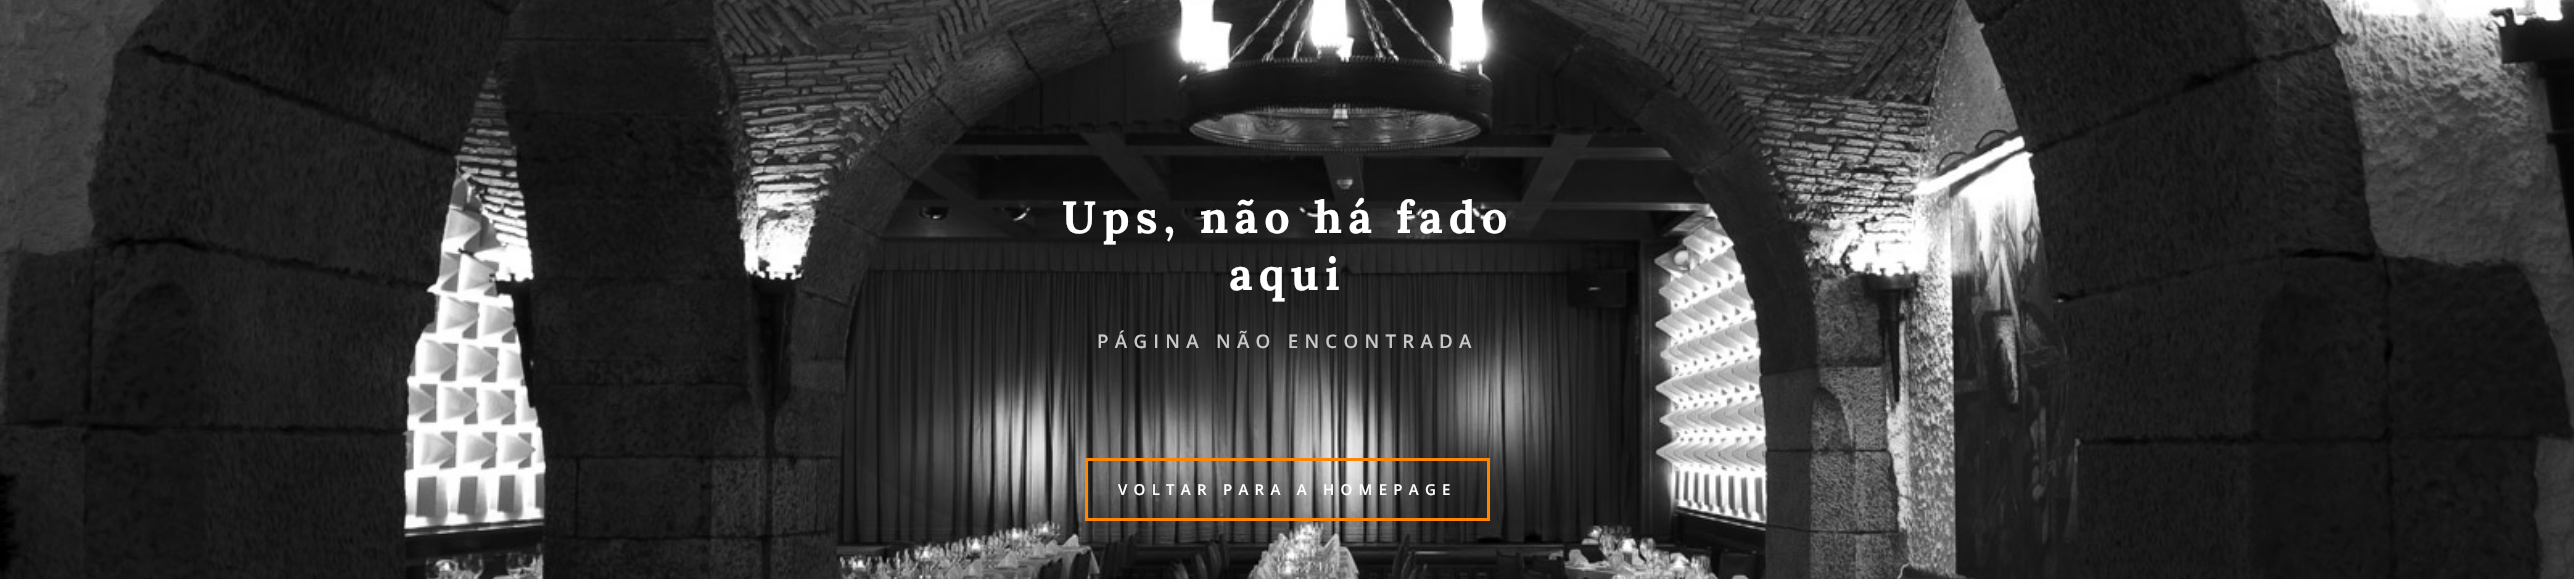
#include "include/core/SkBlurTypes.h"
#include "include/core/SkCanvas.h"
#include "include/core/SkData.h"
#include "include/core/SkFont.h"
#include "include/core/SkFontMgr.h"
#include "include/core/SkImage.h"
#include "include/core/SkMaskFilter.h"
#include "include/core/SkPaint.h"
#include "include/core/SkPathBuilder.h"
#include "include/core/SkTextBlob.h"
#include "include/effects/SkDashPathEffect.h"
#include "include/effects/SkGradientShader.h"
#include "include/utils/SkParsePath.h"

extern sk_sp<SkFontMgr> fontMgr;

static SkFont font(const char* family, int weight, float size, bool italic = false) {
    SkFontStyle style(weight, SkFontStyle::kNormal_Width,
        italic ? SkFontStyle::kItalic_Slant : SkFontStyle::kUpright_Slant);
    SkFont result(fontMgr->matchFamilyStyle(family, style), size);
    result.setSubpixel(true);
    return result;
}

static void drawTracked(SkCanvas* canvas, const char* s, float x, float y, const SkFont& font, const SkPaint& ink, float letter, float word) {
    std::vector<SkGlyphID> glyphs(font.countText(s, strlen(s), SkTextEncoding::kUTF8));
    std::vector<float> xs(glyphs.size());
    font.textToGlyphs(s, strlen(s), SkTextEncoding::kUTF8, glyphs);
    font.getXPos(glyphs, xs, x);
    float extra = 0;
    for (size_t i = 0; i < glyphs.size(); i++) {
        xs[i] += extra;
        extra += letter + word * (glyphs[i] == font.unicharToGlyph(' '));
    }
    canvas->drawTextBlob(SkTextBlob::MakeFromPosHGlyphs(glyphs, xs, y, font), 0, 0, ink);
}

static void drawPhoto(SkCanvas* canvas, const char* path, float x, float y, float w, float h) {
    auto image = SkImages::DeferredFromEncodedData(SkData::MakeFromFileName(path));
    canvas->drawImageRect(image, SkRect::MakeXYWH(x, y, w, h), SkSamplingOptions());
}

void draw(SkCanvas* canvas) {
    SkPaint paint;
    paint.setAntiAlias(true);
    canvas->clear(0xFFFFFFFF);
    drawPhoto(canvas, "assets/img1.png", 0, 0, 2574, 579);
    SkFont font1 = font("Lora", 700, 45);
    paint.setColor(0xFFFFFFFF);
    drawTracked(canvas, "Ups, não há fado", 1062, 233, font1, paint, 6.25f, 0);
    drawTracked(canvas, "aqui", 1229, 290, font1, paint, 6.25f, 0);
    SkFont font2 = font("Open Sans", 600, 18.75f);
    paint.setColor(0xFFC9C9C9);
    drawTracked(canvas, "PÁGINA NÃO ENCONTRADA", 1097, 348, font2, paint, 6.25f, 0);
    paint.setStroke(true);
    paint.setStrokeWidth(3);
    paint.setColor(0xFFFF8504);
    canvas->drawRect(SkRect::MakeXYWH(1086.5f, 459.5f, 402, 60), paint);
    SkFont font3 = font("Open Sans", 600, 15);
    paint.setStroke(false);
    paint.setColor(0xFFFFFFFF);
    drawTracked(canvas, "VOLTAR PARA A HOMEPAGE", 1118, 495, font3, paint, 6.25f, 0);
}
